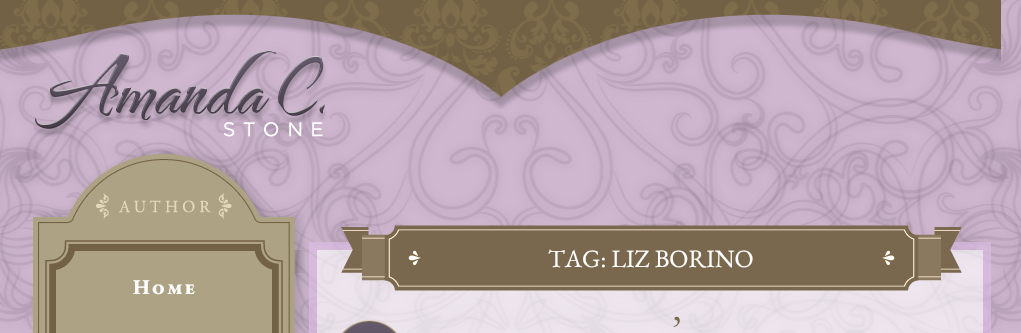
#include "include/core/SkBlurTypes.h"
#include "include/core/SkCanvas.h"
#include "include/core/SkData.h"
#include "include/core/SkFont.h"
#include "include/core/SkFontMgr.h"
#include "include/core/SkImage.h"
#include "include/core/SkMaskFilter.h"
#include "include/core/SkPaint.h"
#include "include/core/SkPathBuilder.h"
#include "include/core/SkTextBlob.h"
#include "include/effects/SkDashPathEffect.h"
#include "include/effects/SkGradientShader.h"
#include "include/utils/SkParsePath.h"

extern sk_sp<SkFontMgr> fontMgr;

static SkFont font(const char* family, int weight, float size, bool italic = false) {
    SkFontStyle style(weight, SkFontStyle::kNormal_Width,
        italic ? SkFontStyle::kItalic_Slant : SkFontStyle::kUpright_Slant);
    SkFont result(fontMgr->matchFamilyStyle(family, style), size);
    result.setSubpixel(true);
    return result;
}

static void drawLabel(SkCanvas* canvas, const char* s, float x, float y, const SkFont& font, SkColor color) {
    SkPaint ink(SkColor4f::FromColor(color));
    ink.setAntiAlias(true);
    canvas->drawString(s, x, y, font, ink);
}

static void drawTracked(SkCanvas* canvas, const char* s, float x, float y, const SkFont& font, const SkPaint& ink, float letter, float word) {
    std::vector<SkGlyphID> glyphs(font.countText(s, strlen(s), SkTextEncoding::kUTF8));
    std::vector<float> xs(glyphs.size());
    font.textToGlyphs(s, strlen(s), SkTextEncoding::kUTF8, glyphs);
    font.getXPos(glyphs, xs, x);
    float extra = 0;
    for (size_t i = 0; i < glyphs.size(); i++) {
        xs[i] += extra;
        extra += letter + word * (glyphs[i] == font.unicharToGlyph(' '));
    }
    canvas->drawTextBlob(SkTextBlob::MakeFromPosHGlyphs(glyphs, xs, y, font), 0, 0, ink);
}

static void fillRect(SkCanvas* canvas, float x, float y, float w, float h, SkColor color) {
    SkPaint ink(SkColor4f::FromColor(color));
    ink.setAntiAlias(true);
    canvas->drawRect(SkRect::MakeXYWH(x, y, w, h), ink);
}

static void drawPhoto(SkCanvas* canvas, const char* path, float x, float y, float w, float h) {
    auto image = SkImages::DeferredFromEncodedData(SkData::MakeFromFileName(path));
    canvas->drawImageRect(image, SkRect::MakeXYWH(x, y, w, h), SkSamplingOptions());
}

void draw(SkCanvas* canvas) {
    SkPaint paint;
    paint.setAntiAlias(true);
    canvas->clear(0xFFCFB7CF);
    drawPhoto(canvas, "assets/img2.png", 0, 0, 1021, 333);
    drawPhoto(canvas, "assets/img3.png", 0, 98, 1021, 235);
    drawPhoto(canvas, "assets/img5.png", 33, 50, 294, 87);
    drawPhoto(canvas, "assets/img1.png", 0, 0, 1001, 109);
    drawPhoto(canvas, "assets/img4.png", 33, 250, 958, 83);
    drawPhoto(canvas, "assets/img6.png", 33, 148, 272, 125);
    SkFont font1 = font("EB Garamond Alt", 700, 21);
    paint.setColor(0xFFFFFFFF);
    drawTracked(canvas, "Home", 133, 294, font1, paint, 2, 0);
    fillRect(canvas, 309, 242, 682, 8, 0xA1DCBEE6);
    drawPhoto(canvas, "assets/img7.png", 439, 225, 425, 66);
    drawPhoto(canvas, "assets/img8.png", 341, 225, 98, 66);
    SkFont font2 = font("EB Garamond", 400, 25);
    drawLabel(canvas, "TAG: LIZ BORINO", 548, 267, font2, 0xFFFFFFFF);
    drawPhoto(canvas, "assets/img9.png", 864, 225, 98, 66);
    drawPhoto(canvas, "assets/img10.png", 342, 320, 55, 13);
    SkFont font3 = font("EB Garamond", 400, 38);
    paint.setColor(0xFF7A684E);
    drawTracked(canvas, "’", 672, 343, font3, paint, 3, 0);
}
